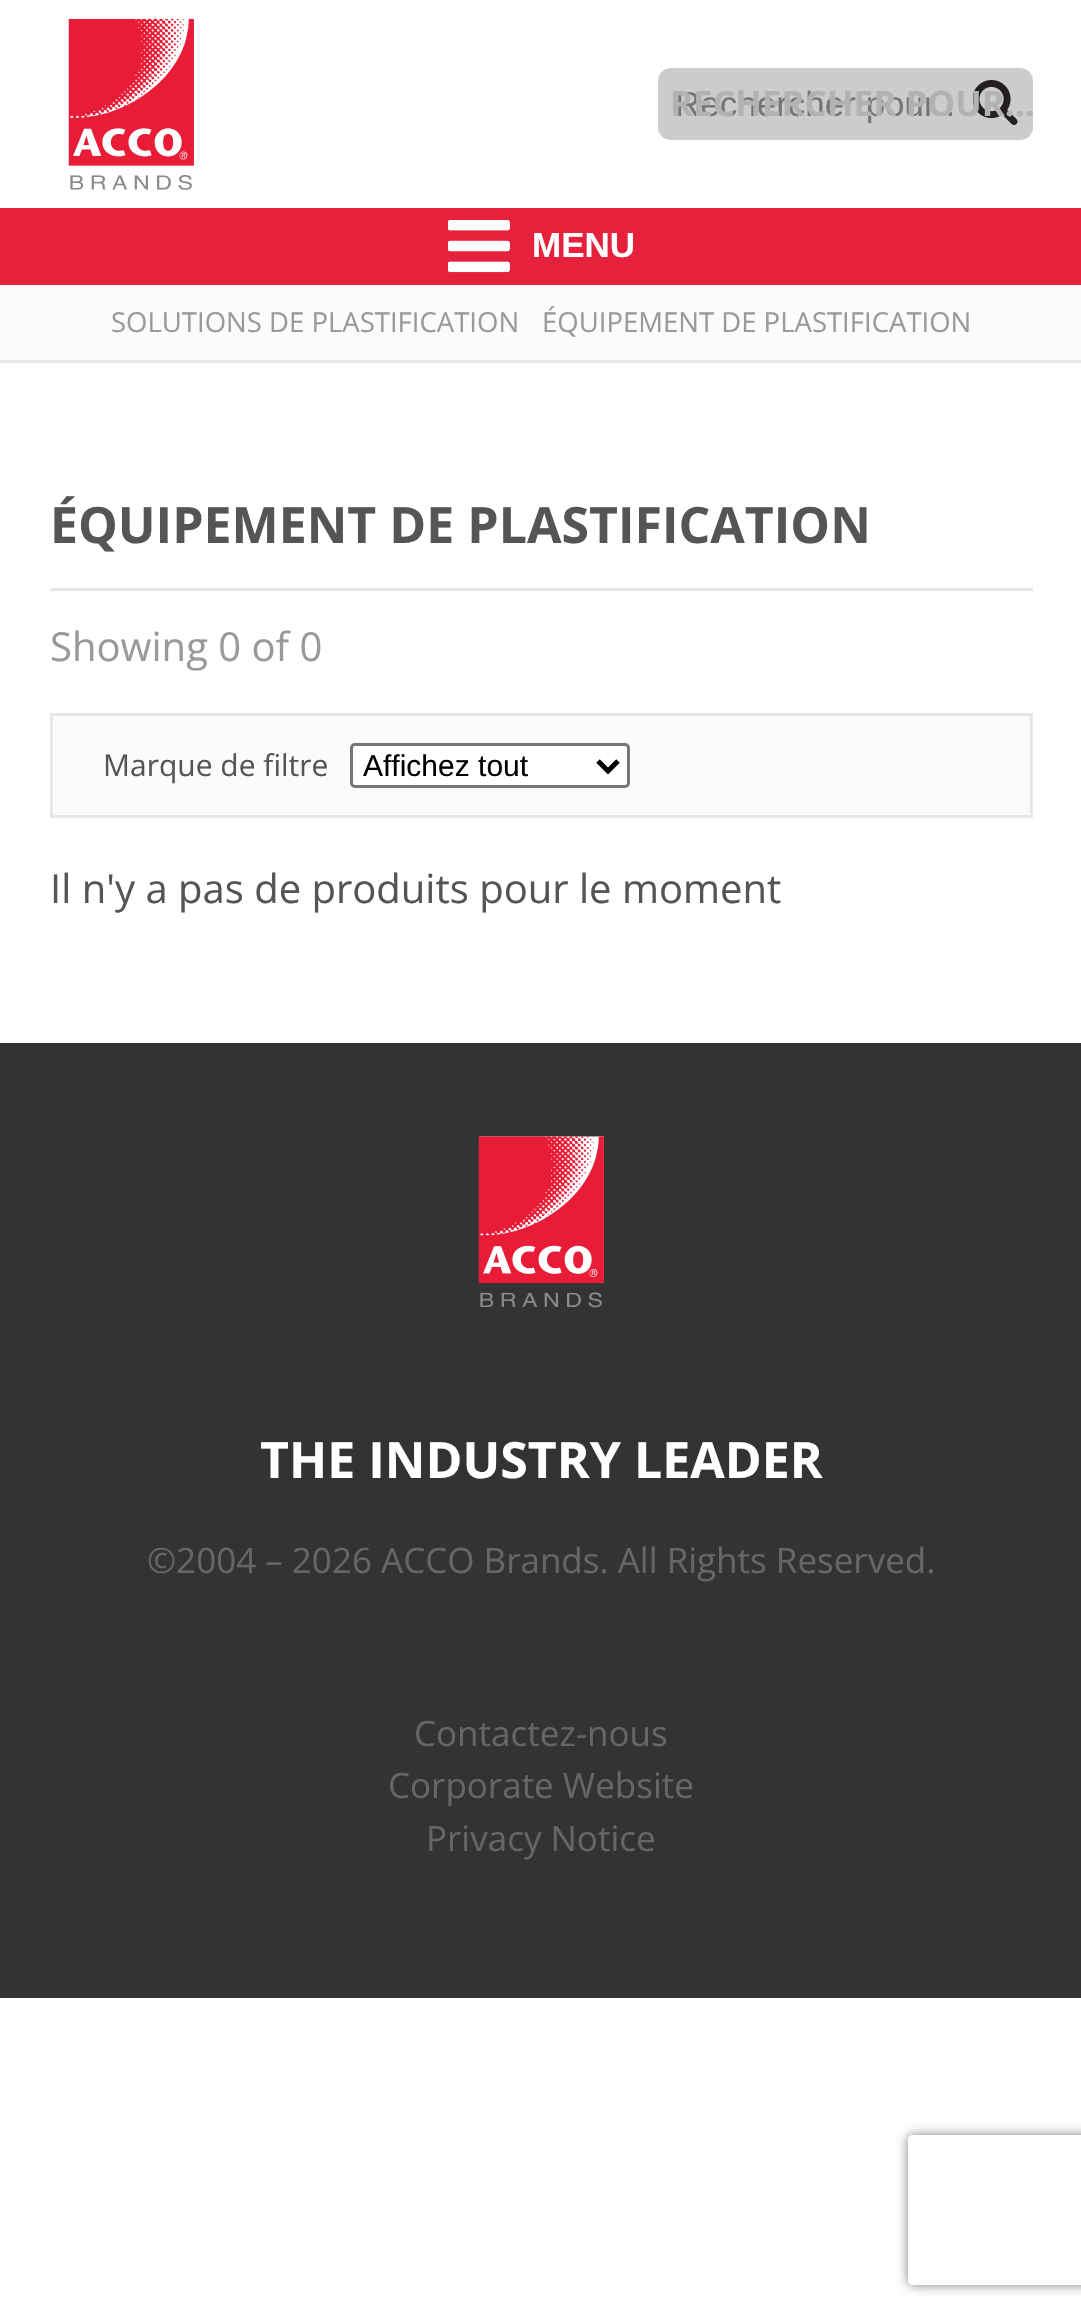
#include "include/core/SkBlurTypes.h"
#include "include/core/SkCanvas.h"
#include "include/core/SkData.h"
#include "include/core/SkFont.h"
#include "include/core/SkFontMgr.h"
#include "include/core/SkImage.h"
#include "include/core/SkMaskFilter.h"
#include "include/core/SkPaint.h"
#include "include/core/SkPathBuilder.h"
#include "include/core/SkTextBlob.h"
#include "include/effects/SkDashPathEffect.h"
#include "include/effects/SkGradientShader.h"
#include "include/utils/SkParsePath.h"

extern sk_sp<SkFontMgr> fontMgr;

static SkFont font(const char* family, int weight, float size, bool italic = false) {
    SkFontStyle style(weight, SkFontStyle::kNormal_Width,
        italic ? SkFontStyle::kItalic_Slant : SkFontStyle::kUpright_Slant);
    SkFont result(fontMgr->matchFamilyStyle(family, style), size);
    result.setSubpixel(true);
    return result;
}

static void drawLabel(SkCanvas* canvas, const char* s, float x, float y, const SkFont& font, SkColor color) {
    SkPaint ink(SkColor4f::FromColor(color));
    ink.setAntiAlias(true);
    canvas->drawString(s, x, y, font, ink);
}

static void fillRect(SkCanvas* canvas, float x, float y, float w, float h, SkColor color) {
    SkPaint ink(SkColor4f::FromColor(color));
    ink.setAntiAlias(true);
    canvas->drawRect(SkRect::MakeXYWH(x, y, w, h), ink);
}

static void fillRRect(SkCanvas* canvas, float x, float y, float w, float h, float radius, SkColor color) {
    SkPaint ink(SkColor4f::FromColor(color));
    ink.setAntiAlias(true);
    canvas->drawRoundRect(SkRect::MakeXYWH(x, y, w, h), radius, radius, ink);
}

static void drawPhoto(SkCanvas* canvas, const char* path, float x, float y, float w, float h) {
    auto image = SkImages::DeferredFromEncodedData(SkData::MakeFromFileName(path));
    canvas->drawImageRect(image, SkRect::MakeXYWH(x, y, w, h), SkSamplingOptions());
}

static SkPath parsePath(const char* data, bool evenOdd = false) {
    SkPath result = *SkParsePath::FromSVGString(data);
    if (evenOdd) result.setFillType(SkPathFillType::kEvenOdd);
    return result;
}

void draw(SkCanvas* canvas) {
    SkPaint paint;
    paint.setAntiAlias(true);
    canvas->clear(0xFFFFFFFF);
    drawPhoto(canvas, "assets/img1.png", 68, 18, 126, 172);
    fillRRect(canvas, 658, 68, 375, 72, 13, 0xFFCCCCCC);
    drawPhoto(canvas, "assets/img2.png", 973, 80, 45, 45);
    canvas->save();
    canvas->clipRect(SkRect::MakeXYWH(675, 83, 278, 40));
    SkFont font1 = font("Liberation Sans", 400, 35);
    drawLabel(canvas, "Rechercher pour..", 675, 116, font1, 0xFF757575);
    canvas->restore();
    SkFont font2 = font("Open Sans", 700, 35);
    drawLabel(canvas, "RECHERCHER POUR...", 670, 116, font2, 0xFFB3B2B2);
    fillRect(canvas, 0, 208, 1081, 77, 0xFFE5213C);
    drawPhoto(canvas, "assets/img3.png", 448, 220, 62, 53);
    SkFont font3 = font("Liberation Sans", 700, 35);
    drawLabel(canvas, "MENU", 532, 257, font3, 0xFFFFFFFF);
    fillRect(canvas, 0, 285, 1081, 75, 0xFFFBFBFB);
    fillRect(canvas, 0, 360, 1081, 3, 0xFFE6E7E9);
    SkFont font4 = font("Open Sans", 400, 27.5f);
    drawLabel(canvas, "SOLUTIONS DE PLASTIFICATION", 111, 332, font4, 0xFF999999);
    drawLabel(canvas, "ÉQUIPEMENT DE PLASTIFICATION", 542, 332, font4, 0xFF999999);
    fillRect(canvas, 50, 588, 983, 3, 0xFFE6E7E9);
    SkFont font5 = font("Open Sans", 700, 50);
    drawLabel(canvas, "ÉQUIPEMENT DE PLASTIFICATION", 50, 543, font5, 0xFF555555);
    SkFont font6 = font("Open Sans", 400, 40);
    drawLabel(canvas, "Showing 0 of 0", 50, 661, font6, 0xFF999999);
    paint.setColor(0xFFFBFBFB);
    canvas->drawRect(SkRect::MakeXYWH(51.5f, 714.5f, 980, 102), paint);
    paint.setStroke(true);
    paint.setStrokeWidth(3);
    paint.setColor(0xFFE6E7E9);
    canvas->drawRect(SkRect::MakeXYWH(51.5f, 714.5f, 980, 102), paint);
    SkFont font7 = font("Open Sans", 400, 30);
    drawLabel(canvas, "Marque de filtre", 103, 776, font7, 0xFF555555);
    paint.setStroke(false);
    paint.setColor(0xFFFFFFFF);
    canvas->drawRoundRect(SkRect::MakeXYWH(351.5f, 744.5f, 277, 42), 3.5f, 3.5f, paint);
    paint.setStroke(true);
    paint.setColor(0xFF767676);
    canvas->drawRoundRect(SkRect::MakeXYWH(351.5f, 744.5f, 277, 42), 3.5f, 3.5f, paint);
    paint.setStrokeWidth(5);
    paint.setColor(0xFF000000);
    canvas->drawPath(parsePath("M598 761L608 771L618 761"), paint);
    SkFont font8 = font("Liberation Sans", 400, 30);
    drawLabel(canvas, "Affichez tout", 363, 776, font8, 0xFF000000);
    drawLabel(canvas, "Il n'y a pas de produits pour le moment", 50, 903, font6, 0xFF555555);
    fillRect(canvas, 0, 1043, 1081, 955, 0xFF333333);
    drawPhoto(canvas, "assets/img4.png", 478, 1136, 126, 172);
    drawLabel(canvas, "THE INDUSTRY LEADER", 260, 1478, font5, 0xFFFFFFFF);
    SkFont font9 = font("Open Sans", 400, 35);
    drawLabel(canvas, "©2004 – 2026 ACCO Brands. All Rights Reserved.", 147, 1573, font9, 0xFF666666);
    drawLabel(canvas, "Contactez-nous", 414, 1746, font9, 0xFF666666);
    drawLabel(canvas, "Corporate Website", 388, 1798, font9, 0xFF666666);
    drawLabel(canvas, "Privacy Notice", 426, 1851, font9, 0xFF666666);
    canvas->save();
    canvas->clipPath(parsePath("M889 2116H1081V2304H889ZM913 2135H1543C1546 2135 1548 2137 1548 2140V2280C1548 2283 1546 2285 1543 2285H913C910 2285 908 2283 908 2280V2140C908 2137 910 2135 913 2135Z", true), true);
    paint.setStroke(false);
    paint.setColor(0xFF808080);
    paint.setMaskFilter(SkMaskFilter::MakeBlur(kNormal_SkBlurStyle, 6));
    canvas->drawRoundRect(SkRect::MakeXYWH(908, 2135, 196, 150), 5, 5, paint);
    paint.setMaskFilter(nullptr);
    canvas->restore();
}
